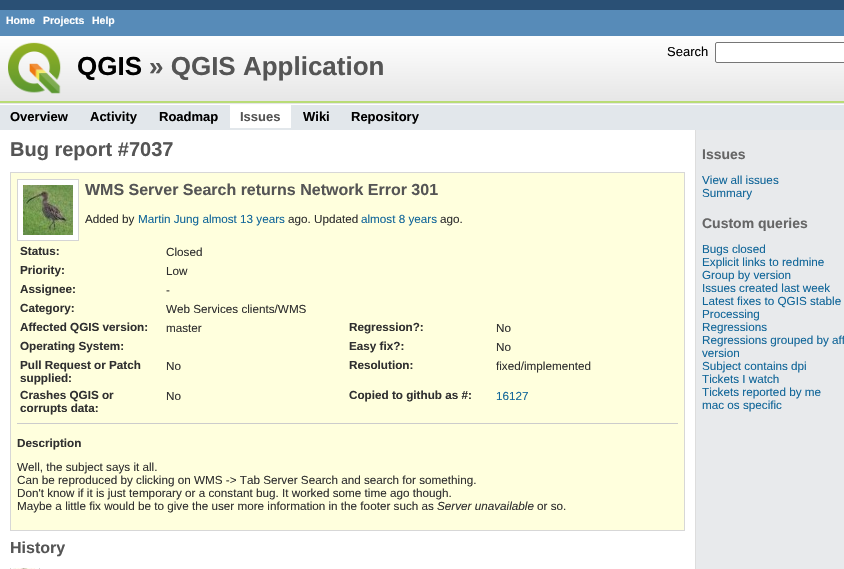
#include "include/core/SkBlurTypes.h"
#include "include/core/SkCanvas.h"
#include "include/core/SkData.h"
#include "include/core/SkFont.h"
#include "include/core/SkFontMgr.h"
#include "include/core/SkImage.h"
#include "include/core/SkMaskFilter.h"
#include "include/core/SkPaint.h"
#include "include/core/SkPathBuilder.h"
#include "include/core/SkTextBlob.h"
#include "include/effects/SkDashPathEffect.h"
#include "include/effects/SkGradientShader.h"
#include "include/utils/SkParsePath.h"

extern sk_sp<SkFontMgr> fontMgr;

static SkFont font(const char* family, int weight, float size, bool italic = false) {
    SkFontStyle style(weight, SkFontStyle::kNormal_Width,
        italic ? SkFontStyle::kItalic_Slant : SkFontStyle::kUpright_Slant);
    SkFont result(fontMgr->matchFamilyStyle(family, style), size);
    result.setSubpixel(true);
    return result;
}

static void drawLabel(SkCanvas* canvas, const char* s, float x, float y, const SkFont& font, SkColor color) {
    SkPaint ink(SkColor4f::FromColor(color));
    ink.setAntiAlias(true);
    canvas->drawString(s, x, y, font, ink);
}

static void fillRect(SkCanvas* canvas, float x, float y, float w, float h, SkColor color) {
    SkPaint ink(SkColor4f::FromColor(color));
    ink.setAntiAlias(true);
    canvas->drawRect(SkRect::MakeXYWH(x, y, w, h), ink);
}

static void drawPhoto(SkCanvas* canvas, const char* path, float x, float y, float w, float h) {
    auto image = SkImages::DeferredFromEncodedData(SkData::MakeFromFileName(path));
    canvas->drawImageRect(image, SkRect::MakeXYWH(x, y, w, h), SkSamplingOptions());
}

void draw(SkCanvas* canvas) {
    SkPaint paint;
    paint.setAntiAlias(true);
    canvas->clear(0xFF2A5075);
    fillRect(canvas, 0, 10, 844, 26, 0xFF578BB8);
    SkFont font1 = font("Liberation Sans", 700, 10.5f);
    drawLabel(canvas, "Home", 6, 24, font1, 0xFFFFFFFF);
    drawLabel(canvas, "Projects", 43, 24, font1, 0xFFFFFFFF);
    drawLabel(canvas, "Help", 92, 24, font1, 0xFFFFFFFF);
    fillRect(canvas, 0, 105, 844, 25, 0xFFE2E7EB);
    drawPhoto(canvas, "assets/img1.png", 0, 36, 844, 68);
    SkFont font2 = font("Liberation Sans", 400, 13);
    drawLabel(canvas, "Search", 667, 56, font2, 0xFF000000);
    paint.setColor(0xFFFFFFFF);
    canvas->drawRoundRect(SkRect::MakeXYWH(715.5f, 42.5f, 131, 20), 1.5f, 1.5f, paint);
    paint.setStroke(true);
    paint.setStrokeWidth(1);
    paint.setColor(0xFF767676);
    canvas->drawRoundRect(SkRect::MakeXYWH(715.5f, 42.5f, 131, 20), 1.5f, 1.5f, paint);
    drawPhoto(canvas, "assets/img2.png", 8, 42, 53, 52);
    SkFont font3 = font("Liberation Sans", 700, 26);
    drawLabel(canvas, "QGIS", 77, 75, font3, 0xFF000000);
    drawLabel(canvas, "» QGIS Application", 149, 75, font3, 0xFF555555);
    fillRect(canvas, 0, 104, 844, 1, 0xFFFFFFFF);
    SkFont font4 = font("Liberation Sans", 700, 13);
    drawLabel(canvas, "Overview", 10, 121, font4, 0xFF000000);
    drawLabel(canvas, "Activity", 90, 121, font4, 0xFF000000);
    drawLabel(canvas, "Roadmap", 159, 121, font4, 0xFF000000);
    fillRect(canvas, 230, 105, 61, 23, 0xFFFFFFFF);
    drawLabel(canvas, "Issues", 240, 121, font4, 0xFF555555);
    drawLabel(canvas, "Wiki", 303, 121, font4, 0xFF000000);
    drawLabel(canvas, "Repository", 351, 121, font4, 0xFF000000);
    fillRect(canvas, 696, 130, 148, 439, 0xFFE8EAEC);
    fillRect(canvas, 0, 130, 695, 439, 0xFFFFFFFF);
    fillRect(canvas, 695, 130, 1, 439, 0xFFDDDDDD);
    SkFont font5 = font("Liberation Sans", 700, 20);
    drawLabel(canvas, "Bug report #7037", 10, 156, font5, 0xFF555555);
    paint.setStroke(false);
    paint.setColor(0xFFFFFFDD);
    canvas->drawRect(SkRect::MakeXYWH(10.5f, 172.5f, 674, 358), paint);
    paint.setStroke(true);
    paint.setColor(0xFFD7D7D7);
    canvas->drawRect(SkRect::MakeXYWH(10.5f, 172.5f, 674, 358), paint);
    paint.setStroke(false);
    paint.setColor(0xFFFFFFFF);
    canvas->drawRect(SkRect::MakeXYWH(17.5f, 179.5f, 61, 61), paint);
    paint.setStroke(true);
    paint.setColor(0xFFD5D5D5);
    canvas->drawRect(SkRect::MakeXYWH(17.5f, 179.5f, 61, 61), paint);
    drawPhoto(canvas, "assets/img3.png", 23, 185, 50, 50);
    SkFont font6 = font("Liberation Sans", 700, 16);
    drawLabel(canvas, "WMS Server Search returns Network Error 301", 85, 195, font6, 0xFF555555);
    SkFont font7 = font("Liberation Sans", 400, 11.7f);
    drawLabel(canvas, "Added by", 85, 223, font7, 0xFF303030);
    drawLabel(canvas, "Martin Jung almost 13 years", 138, 223, font7, 0xFF116699);
    drawLabel(canvas, "ago. Updated", 288, 223, font7, 0xFF303030);
    drawLabel(canvas, "almost 8 years", 361, 223, font7, 0xFF116699);
    drawLabel(canvas, "ago.", 440, 223, font7, 0xFF303030);
    SkFont font8 = font("Liberation Sans", 700, 11.7f);
    drawLabel(canvas, "Status:", 20, 255, font8, 0xFF303030);
    drawLabel(canvas, "Closed", 166, 256, font7, 0xFF303030);
    drawLabel(canvas, "Priority:", 20, 274, font8, 0xFF303030);
    drawLabel(canvas, "Low", 166, 275, font7, 0xFF303030);
    drawLabel(canvas, "Assignee:", 20, 293, font8, 0xFF303030);
    drawLabel(canvas, "-", 166, 294, font7, 0xFF303030);
    drawLabel(canvas, "Category:", 20, 312, font8, 0xFF303030);
    drawLabel(canvas, "Web Services clients/WMS", 166, 313, font7, 0xFF303030);
    drawLabel(canvas, "Affected QGIS version:", 20, 331, font8, 0xFF303030);
    drawLabel(canvas, "master", 166, 332, font7, 0xFF303030);
    drawLabel(canvas, "Regression?:", 349, 331, font8, 0xFF303030);
    drawLabel(canvas, "No", 496, 332, font7, 0xFF303030);
    drawLabel(canvas, "Operating System:", 20, 350, font8, 0xFF303030);
    drawLabel(canvas, "Easy fix?:", 349, 350, font8, 0xFF303030);
    drawLabel(canvas, "No", 496, 351, font7, 0xFF303030);
    drawLabel(canvas, "Pull Request or Patch", 20, 369, font8, 0xFF303030);
    drawLabel(canvas, "supplied:", 20, 382, font8, 0xFF303030);
    drawLabel(canvas, "No", 166, 370, font7, 0xFF303030);
    drawLabel(canvas, "Resolution:", 349, 369, font8, 0xFF303030);
    drawLabel(canvas, "fixed/implemented", 496, 370, font7, 0xFF303030);
    drawLabel(canvas, "Crashes QGIS or", 20, 399, font8, 0xFF303030);
    drawLabel(canvas, "corrupts data:", 20, 412, font8, 0xFF303030);
    drawLabel(canvas, "No", 166, 400, font7, 0xFF303030);
    drawLabel(canvas, "Copied to github as #:", 349, 399, font8, 0xFF303030);
    drawLabel(canvas, "16127", 496, 400, font7, 0xFF116699);
    fillRect(canvas, 17, 423, 661, 1, 0xFFCCCCCC);
    drawLabel(canvas, "Description", 17, 447, font8, 0xFF303030);
    drawLabel(canvas, "Well, the subject says it all.", 17, 471, font7, 0xFF303030);
    drawLabel(canvas, "Can be reproduced by clicking on WMS -> Tab Server Search and search for something.", 17, 484, font7, 0xFF303030);
    drawLabel(canvas, "Don't know if it is just temporary or a constant bug. It worked some time ago though.", 17, 497, font7, 0xFF303030);
    drawLabel(canvas, "Maybe a little fix would be to give the user more information in the footer such as", 17, 510, font7, 0xFF303030);
    SkFont font9 = font("Liberation Sans", 400, 11.7f, true);
    drawLabel(canvas, "Server unavailable", 437, 510, font9, 0xFF303030);
    drawLabel(canvas, "or so.", 537, 510, font7, 0xFF303030);
    drawLabel(canvas, "History", 10, 553, font6, 0xFF555555);
    canvas->save();
    canvas->clipRect(SkRect::MakeXYWH(10, 568, 675, 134));
    canvas->drawRect(SkRect::MakeXYWH(10.5f, 564.5f, 29, 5), paint);
    canvas->restore();
    drawPhoto(canvas, "assets/img4.png", 13, 568, 22, 1);
    SkFont font10 = font("Liberation Sans", 700, 14);
    drawLabel(canvas, "Issues", 702, 159, font10, 0xFF666666);
    drawLabel(canvas, "View all issues", 702, 184, font7, 0xFF116699);
    drawLabel(canvas, "Summary", 702, 197, font7, 0xFF116699);
    drawLabel(canvas, "Custom queries", 702, 228, font10, 0xFF666666);
    drawLabel(canvas, "Bugs closed", 702, 253, font7, 0xFF116699);
    drawLabel(canvas, "Explicit links to redmine", 702, 266, font7, 0xFF116699);
    drawLabel(canvas, "Group by version", 702, 279, font7, 0xFF116699);
    drawLabel(canvas, "Issues created last week", 702, 292, font7, 0xFF116699);
    drawLabel(canvas, "Latest fixes to QGIS stable", 702, 305, font7, 0xFF116699);
    drawLabel(canvas, "Processing", 702, 318, font7, 0xFF116699);
    drawLabel(canvas, "Regressions", 702, 331, font7, 0xFF116699);
    drawLabel(canvas, "Regressions grouped by aff", 702, 344, font7, 0xFF116699);
    drawLabel(canvas, "version", 702, 357, font7, 0xFF116699);
    drawLabel(canvas, "Subject contains dpi", 702, 370, font7, 0xFF116699);
    drawLabel(canvas, "Tickets I watch", 702, 383, font7, 0xFF116699);
    drawLabel(canvas, "Tickets reported by me", 702, 396, font7, 0xFF116699);
    drawLabel(canvas, "mac os specific", 702, 409, font7, 0xFF116699);
}
